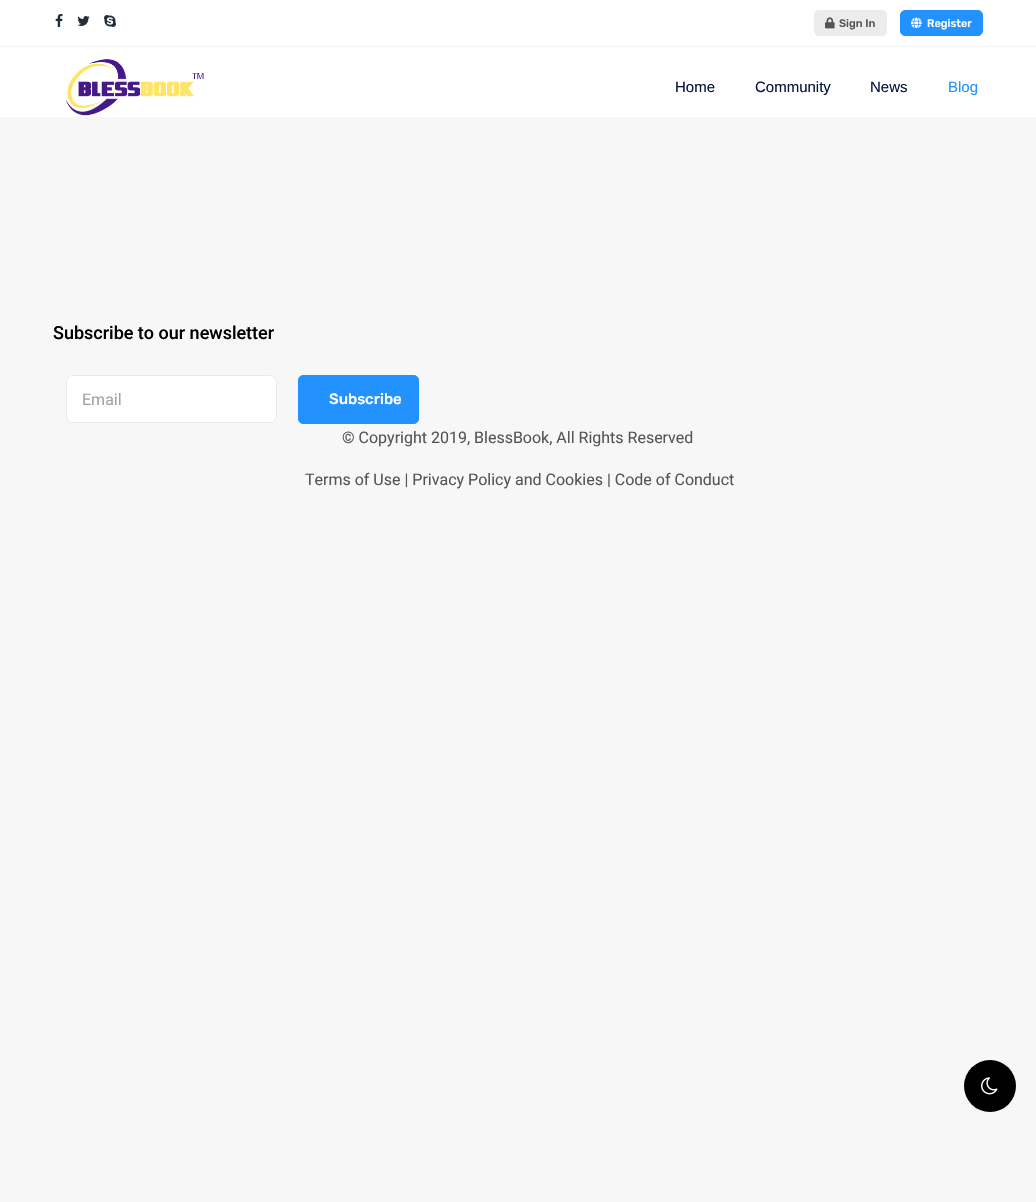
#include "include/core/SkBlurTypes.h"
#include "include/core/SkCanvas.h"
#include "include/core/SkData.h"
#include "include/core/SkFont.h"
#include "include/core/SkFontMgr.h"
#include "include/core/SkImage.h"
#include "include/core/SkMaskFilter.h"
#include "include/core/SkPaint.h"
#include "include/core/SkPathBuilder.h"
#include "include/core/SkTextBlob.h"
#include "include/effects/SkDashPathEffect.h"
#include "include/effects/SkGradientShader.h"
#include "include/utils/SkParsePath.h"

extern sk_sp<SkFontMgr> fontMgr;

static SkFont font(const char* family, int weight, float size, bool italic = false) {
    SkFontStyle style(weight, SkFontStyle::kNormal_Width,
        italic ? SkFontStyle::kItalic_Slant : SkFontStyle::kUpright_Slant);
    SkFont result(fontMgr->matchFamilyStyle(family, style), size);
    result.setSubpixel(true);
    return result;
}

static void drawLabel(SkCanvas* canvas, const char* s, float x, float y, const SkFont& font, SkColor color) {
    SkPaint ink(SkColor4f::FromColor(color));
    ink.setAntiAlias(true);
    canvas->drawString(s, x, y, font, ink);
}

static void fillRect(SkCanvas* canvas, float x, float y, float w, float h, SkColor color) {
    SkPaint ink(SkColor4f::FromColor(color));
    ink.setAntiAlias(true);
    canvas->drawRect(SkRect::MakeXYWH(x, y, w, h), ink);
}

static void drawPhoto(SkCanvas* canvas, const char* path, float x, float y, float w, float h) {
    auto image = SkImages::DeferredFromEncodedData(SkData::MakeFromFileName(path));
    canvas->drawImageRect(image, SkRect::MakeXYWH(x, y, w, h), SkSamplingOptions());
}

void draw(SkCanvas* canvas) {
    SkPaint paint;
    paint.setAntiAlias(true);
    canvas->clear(0xFFF7F7F7);
    fillRect(canvas, 0, 0, 1036, 46, 0xFFFFFFFF);
    fillRect(canvas, 0, 46, 1036, 1, 0xFFF2F2F2);
    drawPhoto(canvas, "assets/img1.png", 55, 14, 8, 13);
    drawPhoto(canvas, "assets/img2.png", 77, 16, 13, 10);
    drawPhoto(canvas, "assets/img3.png", 104, 15, 12, 12);
    paint.setColor(0xFFECECEC);
    canvas->drawRoundRect(SkRect::MakeXYWH(814.5f, 10.5f, 72, 25), 4.5f, 4.5f, paint);
    paint.setStroke(true);
    paint.setStrokeWidth(1);
    canvas->drawRoundRect(SkRect::MakeXYWH(814.5f, 10.5f, 72, 25), 4.5f, 4.5f, paint);
    drawPhoto(canvas, "assets/img4.png", 825, 17, 10, 12);
    SkFont font1 = font("Rubik", 500, 11);
    drawLabel(canvas, "Sign In", 839, 27, font1, 0xFF555555);
    paint.setStroke(false);
    paint.setColor(0xFF2392FF);
    canvas->drawRoundRect(SkRect::MakeXYWH(900.5f, 10.5f, 82, 25), 4.5f, 4.5f, paint);
    paint.setStroke(true);
    canvas->drawRoundRect(SkRect::MakeXYWH(900.5f, 10.5f, 82, 25), 4.5f, 4.5f, paint);
    drawPhoto(canvas, "assets/img5.png", 911, 17, 11, 12);
    drawLabel(canvas, "Register", 927, 27, font1, 0xFFFFFFFF);
    fillRect(canvas, 0, 47, 1036, 70, 0xFFFFFFFF);
    drawPhoto(canvas, "assets/img6.png", 66, 59, 138, 57);
    SkFont font2 = font("Liberation Sans", 400, 15);
    drawLabel(canvas, "Home", 675, 92, font2, 0xFF051441);
    drawLabel(canvas, "Community", 755, 92, font2, 0xFF051441);
    drawLabel(canvas, "News", 870, 92, font2, 0xFF051441);
    drawLabel(canvas, "Blog", 948, 92, font2, 0xFF2392FF);
    SkFont font3 = font("Roboto", 500, 18);
    drawLabel(canvas, "Subscribe to our newsletter", 53, 339, font3, 0xFF000000);
    paint.setStroke(false);
    paint.setColor(0xFFFFFFFF);
    canvas->drawRoundRect(SkRect::MakeXYWH(66.5f, 375.5f, 210, 47), 6.5f, 6.5f, paint);
    paint.setStroke(true);
    paint.setColor(0xFFEAEAEA);
    canvas->drawRoundRect(SkRect::MakeXYWH(66.5f, 375.5f, 210, 47), 6.5f, 6.5f, paint);
    SkFont font4 = font("Roboto", 400, 16);
    drawLabel(canvas, "Email", 82, 405, font4, 0xFFA2A2A2);
    paint.setStroke(false);
    paint.setColor(0xFF2392FF);
    canvas->drawRoundRect(SkRect::MakeXYWH(298.5f, 375.5f, 120, 48), 4.5f, 4.5f, paint);
    paint.setStroke(true);
    canvas->drawRoundRect(SkRect::MakeXYWH(298.5f, 375.5f, 120, 48), 4.5f, 4.5f, paint);
    SkFont font5 = font("Rubik", 500, 15);
    drawLabel(canvas, "Subscribe", 329, 404, font5, 0xFFFFFFFF);
    drawLabel(canvas, "© Copyright 2019, BlessBook, All Rights Reserved", 342, 443, font4, 0xFF555555);
    drawLabel(canvas, "Terms of Use | Privacy Policy and Cookies | Code of Conduct", 305, 485, font4, 0xFF555555);
    paint.setStroke(false);
    paint.setColor(0xFF000000);
    canvas->drawCircle(990, 1086, 26, paint);
    drawPhoto(canvas, "assets/img7.png", 981, 1077, 17, 18);
}
